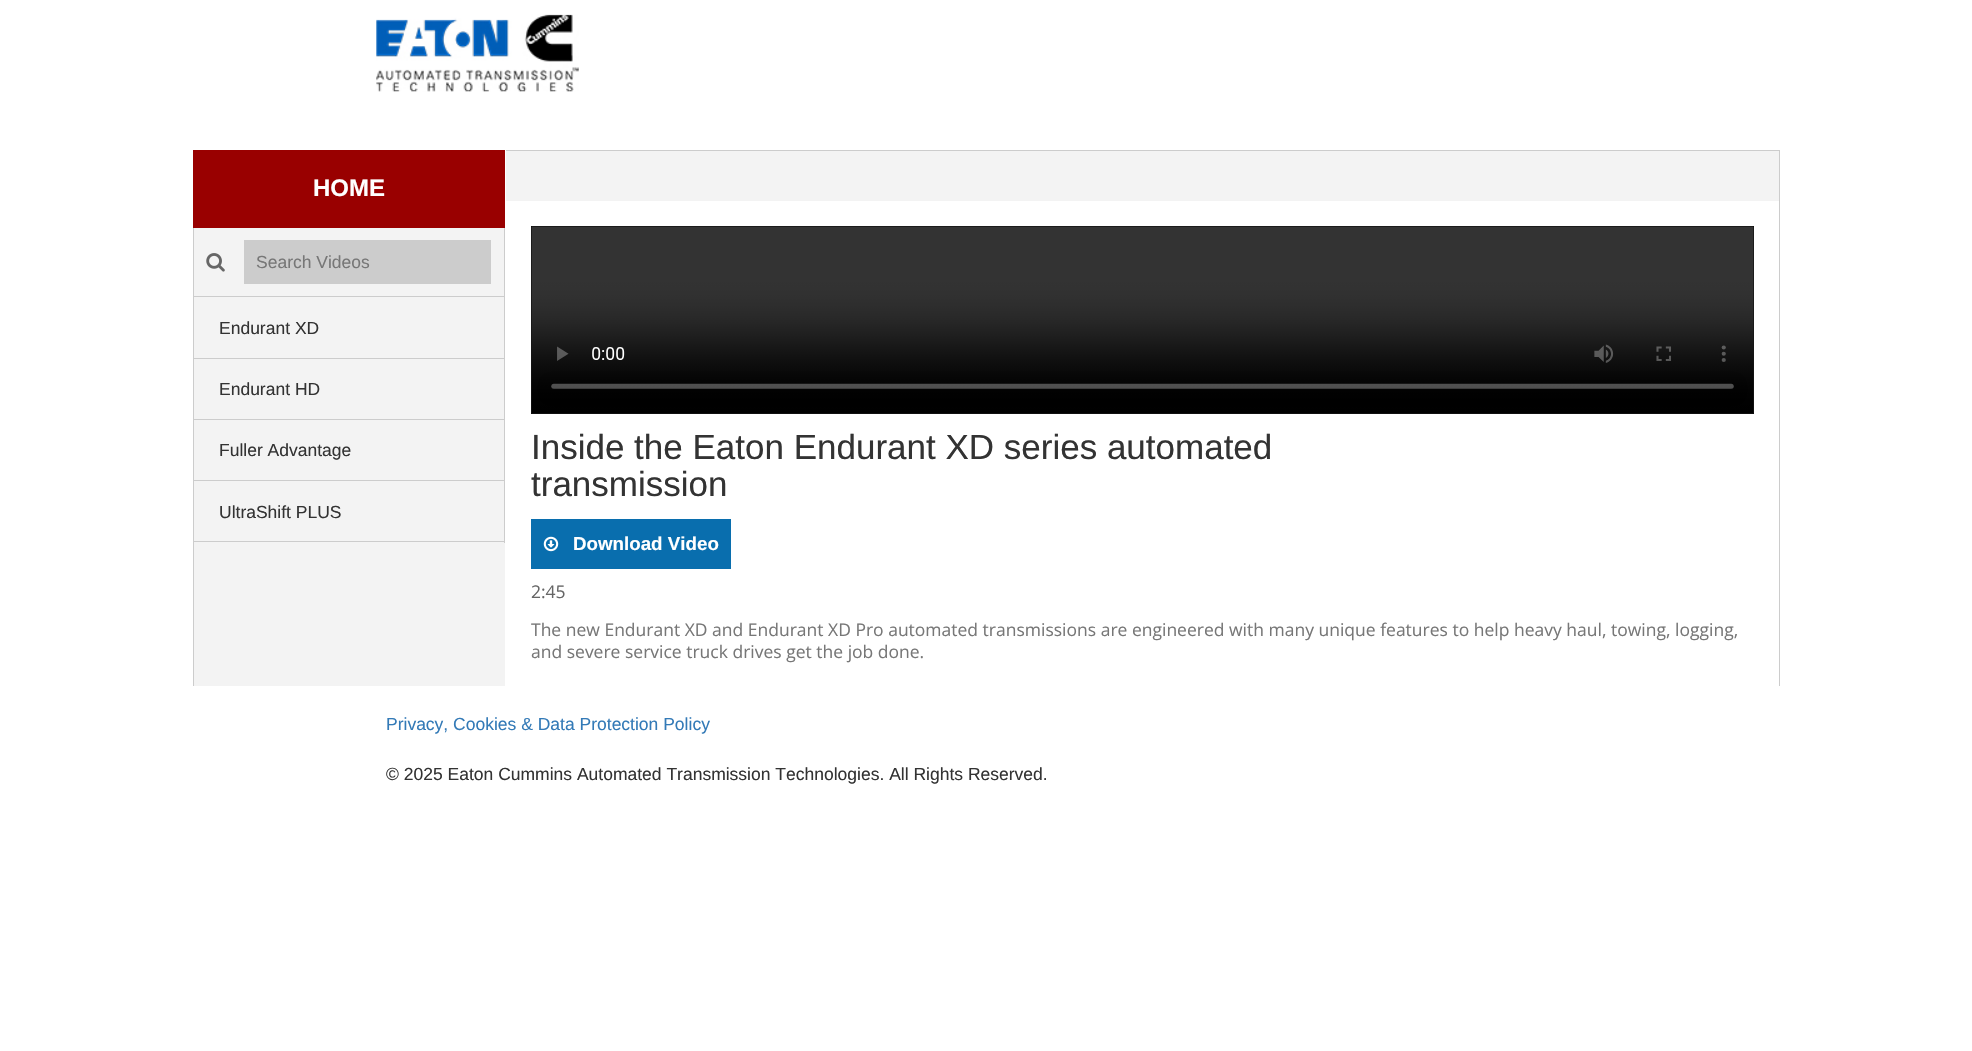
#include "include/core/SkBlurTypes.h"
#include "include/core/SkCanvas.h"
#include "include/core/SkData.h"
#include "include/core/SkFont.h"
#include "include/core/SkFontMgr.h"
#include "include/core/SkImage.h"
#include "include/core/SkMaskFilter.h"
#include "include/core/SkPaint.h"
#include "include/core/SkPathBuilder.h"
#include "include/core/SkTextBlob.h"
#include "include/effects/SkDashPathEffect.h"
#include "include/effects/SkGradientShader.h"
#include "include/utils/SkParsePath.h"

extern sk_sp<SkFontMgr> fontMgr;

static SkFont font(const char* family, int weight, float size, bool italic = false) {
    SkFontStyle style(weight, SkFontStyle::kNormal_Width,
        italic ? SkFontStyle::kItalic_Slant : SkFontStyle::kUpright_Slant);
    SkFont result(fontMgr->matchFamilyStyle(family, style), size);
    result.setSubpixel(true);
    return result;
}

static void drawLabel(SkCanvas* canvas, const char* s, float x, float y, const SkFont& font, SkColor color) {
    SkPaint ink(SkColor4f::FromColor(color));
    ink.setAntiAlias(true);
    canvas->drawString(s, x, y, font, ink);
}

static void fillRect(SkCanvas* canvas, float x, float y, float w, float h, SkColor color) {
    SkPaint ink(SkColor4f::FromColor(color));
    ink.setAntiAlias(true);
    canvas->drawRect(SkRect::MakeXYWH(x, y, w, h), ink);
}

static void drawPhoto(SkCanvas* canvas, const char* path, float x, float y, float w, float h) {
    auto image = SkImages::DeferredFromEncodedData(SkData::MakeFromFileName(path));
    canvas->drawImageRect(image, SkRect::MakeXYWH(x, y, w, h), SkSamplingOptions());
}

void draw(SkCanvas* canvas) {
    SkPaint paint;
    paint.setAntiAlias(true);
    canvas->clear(0xFFFFFFFF);
    drawPhoto(canvas, "assets/img1.png", 376, 14, 203, 78);
    fillRect(canvas, 1779, 150, 1, 536, 0xFFCCCCCC);
    fillRect(canvas, 193, 228, 1, 458, 0xFFCCCCCC);
    fillRect(canvas, 194, 228, 311, 458, 0xFFF3F3F3);
    fillRect(canvas, 504, 228, 1, 315, 0xFFCCCCCC);
    fillRect(canvas, 193, 150, 312, 78, 0xFF990000);
    SkFont font1 = font("Liberation Sans", 700, 24);
    drawLabel(canvas, "HOME", 313, 196, font1, 0xFFFFFFFF);
    drawPhoto(canvas, "assets/img2.png", 206, 253, 19, 19);
    fillRect(canvas, 244, 240, 247, 44, 0xFFCCCCCC);
    SkFont font2 = font("Liberation Sans", 400, 17.5f);
    drawLabel(canvas, "Search Videos", 256, 268, font2, 0xFF777777);
    fillRect(canvas, 194, 296, 310, 1, 0xFFCCCCCC);
    fillRect(canvas, 194, 358, 310, 1, 0xFFCCCCCC);
    drawLabel(canvas, "Endurant XD", 219, 334, font2, 0xFF333333);
    fillRect(canvas, 194, 419, 310, 1, 0xFFCCCCCC);
    drawLabel(canvas, "Endurant HD", 219, 395, font2, 0xFF333333);
    fillRect(canvas, 194, 480, 310, 1, 0xFFCCCCCC);
    drawLabel(canvas, "Fuller Advantage", 219, 456, font2, 0xFF333333);
    fillRect(canvas, 194, 541, 310, 1, 0xFFCCCCCC);
    drawLabel(canvas, "UltraShift PLUS", 219, 518, font2, 0xFF333333);
    fillRect(canvas, 506, 151, 1273, 50, 0xFFF3F3F3);
    fillRect(canvas, 506, 150, 1273, 1, 0xFFCCCCCC);
    fillRect(canvas, 531, 226, 1223, 188, 0xFF000000);
    drawPhoto(canvas, "assets/img3.png", 531, 226, 1223, 188);
    SkFont font3 = font("Liberation Sans", 400, 35);
    drawLabel(canvas, "Inside the Eaton Endurant XD series automated", 531, 459, font3, 0xFF333333);
    drawLabel(canvas, "transmission", 531, 496, font3, 0xFF333333);
    fillRect(canvas, 531, 519, 200, 50, 0xFF096EAE);
    drawPhoto(canvas, "assets/img4.png", 543, 536, 16, 16);
    SkFont font4 = font("Liberation Sans", 700, 18.75f);
    drawLabel(canvas, "Download Video", 573, 550, font4, 0xFFFFFFFF);
    SkFont font5 = font("Open Sans", 400, 17.5f);
    drawLabel(canvas, "2:45", 531, 598, font5, 0xFF666666);
    drawLabel(canvas, "The new Endurant XD and Endurant XD Pro automated transmissions are engineered with many unique features to help heavy haul, towing, logging,", 531, 636, font5, 0xFF777777);
    drawLabel(canvas, "and severe service truck drives get the job done.", 531, 658, font5, 0xFF777777);
    drawLabel(canvas, "Privacy, Cookies & Data Protection Policy", 386, 730, font2, 0xFF337AB7);
    drawLabel(canvas, "© 2025 Eaton Cummins Automated Transmission Technologies. All Rights Reserved.", 386, 780, font2, 0xFF333333);
}
